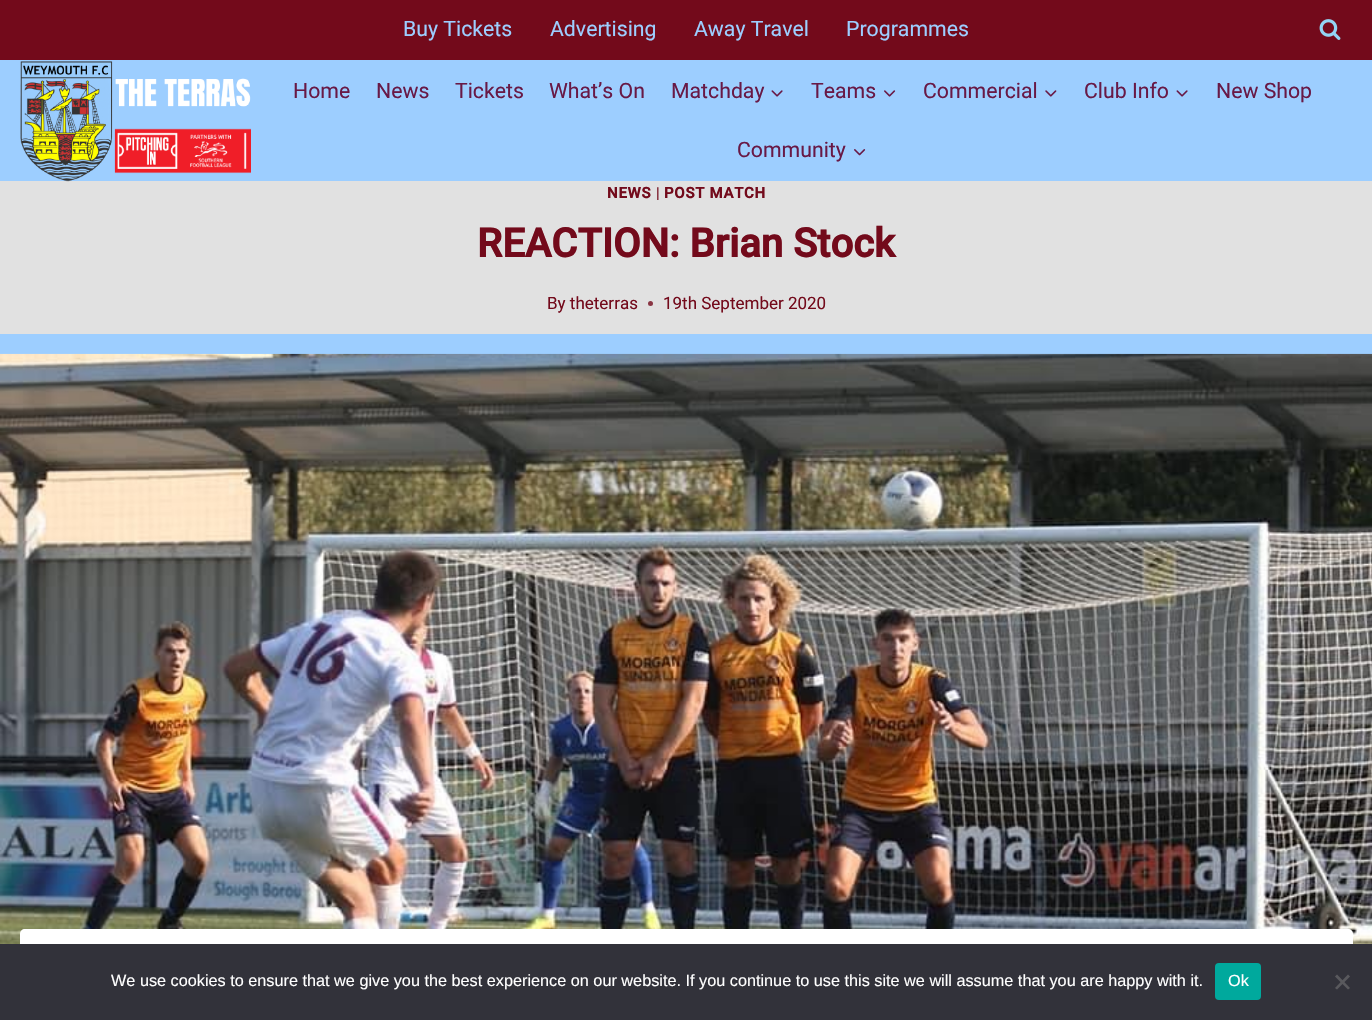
#include "include/core/SkBlurTypes.h"
#include "include/core/SkCanvas.h"
#include "include/core/SkData.h"
#include "include/core/SkFont.h"
#include "include/core/SkFontMgr.h"
#include "include/core/SkImage.h"
#include "include/core/SkMaskFilter.h"
#include "include/core/SkPaint.h"
#include "include/core/SkPathBuilder.h"
#include "include/core/SkTextBlob.h"
#include "include/effects/SkDashPathEffect.h"
#include "include/effects/SkGradientShader.h"
#include "include/utils/SkParsePath.h"

extern sk_sp<SkFontMgr> fontMgr;

static SkFont font(const char* family, int weight, float size, bool italic = false) {
    SkFontStyle style(weight, SkFontStyle::kNormal_Width,
        italic ? SkFontStyle::kItalic_Slant : SkFontStyle::kUpright_Slant);
    SkFont result(fontMgr->matchFamilyStyle(family, style), size);
    result.setSubpixel(true);
    return result;
}

static void drawLabel(SkCanvas* canvas, const char* s, float x, float y, const SkFont& font, SkColor color) {
    SkPaint ink(SkColor4f::FromColor(color));
    ink.setAntiAlias(true);
    canvas->drawString(s, x, y, font, ink);
}

static void drawTracked(SkCanvas* canvas, const char* s, float x, float y, const SkFont& font, const SkPaint& ink, float letter, float word) {
    std::vector<SkGlyphID> glyphs(font.countText(s, strlen(s), SkTextEncoding::kUTF8));
    std::vector<float> xs(glyphs.size());
    font.textToGlyphs(s, strlen(s), SkTextEncoding::kUTF8, glyphs);
    font.getXPos(glyphs, xs, x);
    float extra = 0;
    for (size_t i = 0; i < glyphs.size(); i++) {
        xs[i] += extra;
        extra += letter + word * (glyphs[i] == font.unicharToGlyph(' '));
    }
    canvas->drawTextBlob(SkTextBlob::MakeFromPosHGlyphs(glyphs, xs, y, font), 0, 0, ink);
}

static void fillRect(SkCanvas* canvas, float x, float y, float w, float h, SkColor color) {
    SkPaint ink(SkColor4f::FromColor(color));
    ink.setAntiAlias(true);
    canvas->drawRect(SkRect::MakeXYWH(x, y, w, h), ink);
}

static void fillRRect(SkCanvas* canvas, float x, float y, float w, float h, float radius, SkColor color) {
    SkPaint ink(SkColor4f::FromColor(color));
    ink.setAntiAlias(true);
    canvas->drawRoundRect(SkRect::MakeXYWH(x, y, w, h), radius, radius, ink);
}

static void drawPhoto(SkCanvas* canvas, const char* path, float x, float y, float w, float h) {
    auto image = SkImages::DeferredFromEncodedData(SkData::MakeFromFileName(path));
    canvas->drawImageRect(image, SkRect::MakeXYWH(x, y, w, h), SkSamplingOptions());
}

static SkPath parsePath(const char* data, bool evenOdd = false) {
    SkPath result = *SkParsePath::FromSVGString(data);
    if (evenOdd) result.setFillType(SkPathFillType::kEvenOdd);
    return result;
}

void draw(SkCanvas* canvas) {
    SkPaint paint;
    paint.setAntiAlias(true);
    canvas->clear(0xFF9DCEFF);
    fillRect(canvas, 0, 0, 1372, 60, 0xFF730A1B);
    SkFont font1 = font("Roboto", 400, 21.25f);
    drawLabel(canvas, "Buy Tickets", 403, 36, font1, 0xFF9DCEFF);
    drawLabel(canvas, "Advertising", 550, 36, font1, 0xFF9DCEFF);
    drawLabel(canvas, "Away Travel", 694, 36, font1, 0xFF9DCEFF);
    drawLabel(canvas, "Programmes", 846, 36, font1, 0xFF9DCEFF);
    drawPhoto(canvas, "assets/img1.png", 1319, 19, 22, 21);
    fillRect(canvas, 0, 181, 1372, 153, 0xFFE1E1E1);
    drawPhoto(canvas, "assets/img2.png", 20, 61, 231, 121);
    drawLabel(canvas, "Home", 293, 98, font1, 0xFF681946);
    drawLabel(canvas, "News", 376, 98, font1, 0xFF681946);
    drawLabel(canvas, "Tickets", 455, 98, font1, 0xFF681946);
    drawLabel(canvas, "What’s On", 549, 98, font1, 0xFF681946);
    drawLabel(canvas, "Matchday", 671, 98, font1, 0xFF681946);
    drawPhoto(canvas, "assets/img3.png", 771, 90, 12, 7);
    drawLabel(canvas, "Teams", 811, 98, font1, 0xFF681946);
    drawPhoto(canvas, "assets/img4.png", 884, 90, 12, 7);
    drawLabel(canvas, "Commercial", 923, 98, font1, 0xFF681946);
    drawPhoto(canvas, "assets/img5.png", 1045, 90, 12, 7);
    drawLabel(canvas, "Club Info", 1084, 98, font1, 0xFF681946);
    drawPhoto(canvas, "assets/img3.png", 1176, 90, 12, 7);
    drawLabel(canvas, "New Shop", 1216, 98, font1, 0xFF681946);
    drawLabel(canvas, "Community", 737, 157, font1, 0xFF681946);
    drawPhoto(canvas, "assets/img6.png", 854, 149, 12, 7);
    SkFont font2 = font("Roboto", 700, 15);
    paint.setColor(0xFF730A1B);
    drawTracked(canvas, "NEWS", 607, 198, font2, paint, 0.75f, 0);
    SkFont font3 = font("Roboto", 400, 15);
    drawTracked(canvas, "|", 656, 198, font3, paint, 0.75f, 0);
    drawTracked(canvas, "POST MATCH", 664, 198, font2, paint, 0.75f, 0);
    SkFont font4 = font("Roboto", 700, 40);
    drawLabel(canvas, "REACTION: Brian Stock", 477, 257, font4, 0xFF730A1B);
    SkFont font5 = font("Roboto", 400, 17);
    drawLabel(canvas, "By theterras", 547, 309, font5, 0xFF730A1B);
    paint.setColor(0xFF893543);
    canvas->drawCircle(650.5f, 303.5f, 2.5f, paint);
    drawLabel(canvas, "19th September 2020", 663, 309, font5, 0xFF730A1B);
    drawPhoto(canvas, "assets/img7.png", 0, 353, 1372, 591);
    paint.setColor(0xFFFFFFFF);
    canvas->drawPath(parsePath("M25 929H1348C1351 929 1353 931 1353 934V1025H20V934C20 931 22 929 25 929Z"), paint);
    fillRect(canvas, 0, 944, 1372, 76, 0xFF32323A);
    SkFont font6 = font("Liberation Sans", 400, 16.25f);
    drawLabel(canvas, "We use cookies to ensure that we give you the best experience on our website. If you continue to use this site we will assume that you are happy with it.", 111, 986, font6, 0xFFFFFFFF);
    fillRRect(canvas, 1215, 963, 46, 37, 4, 0xFF00A99D);
    drawLabel(canvas, "Ok", 1228, 986, font6, 0xFFFFFFFF);
    paint.setColor(0xFF59595D);
    canvas->drawPath(parsePath("M1348 974.5L1350 976.5L1337 989.5L1335 988Z"), paint);
    canvas->drawPath(parsePath("M1335 976.5L1337 974.5L1350 988L1348 989.5Z"), paint);
}
